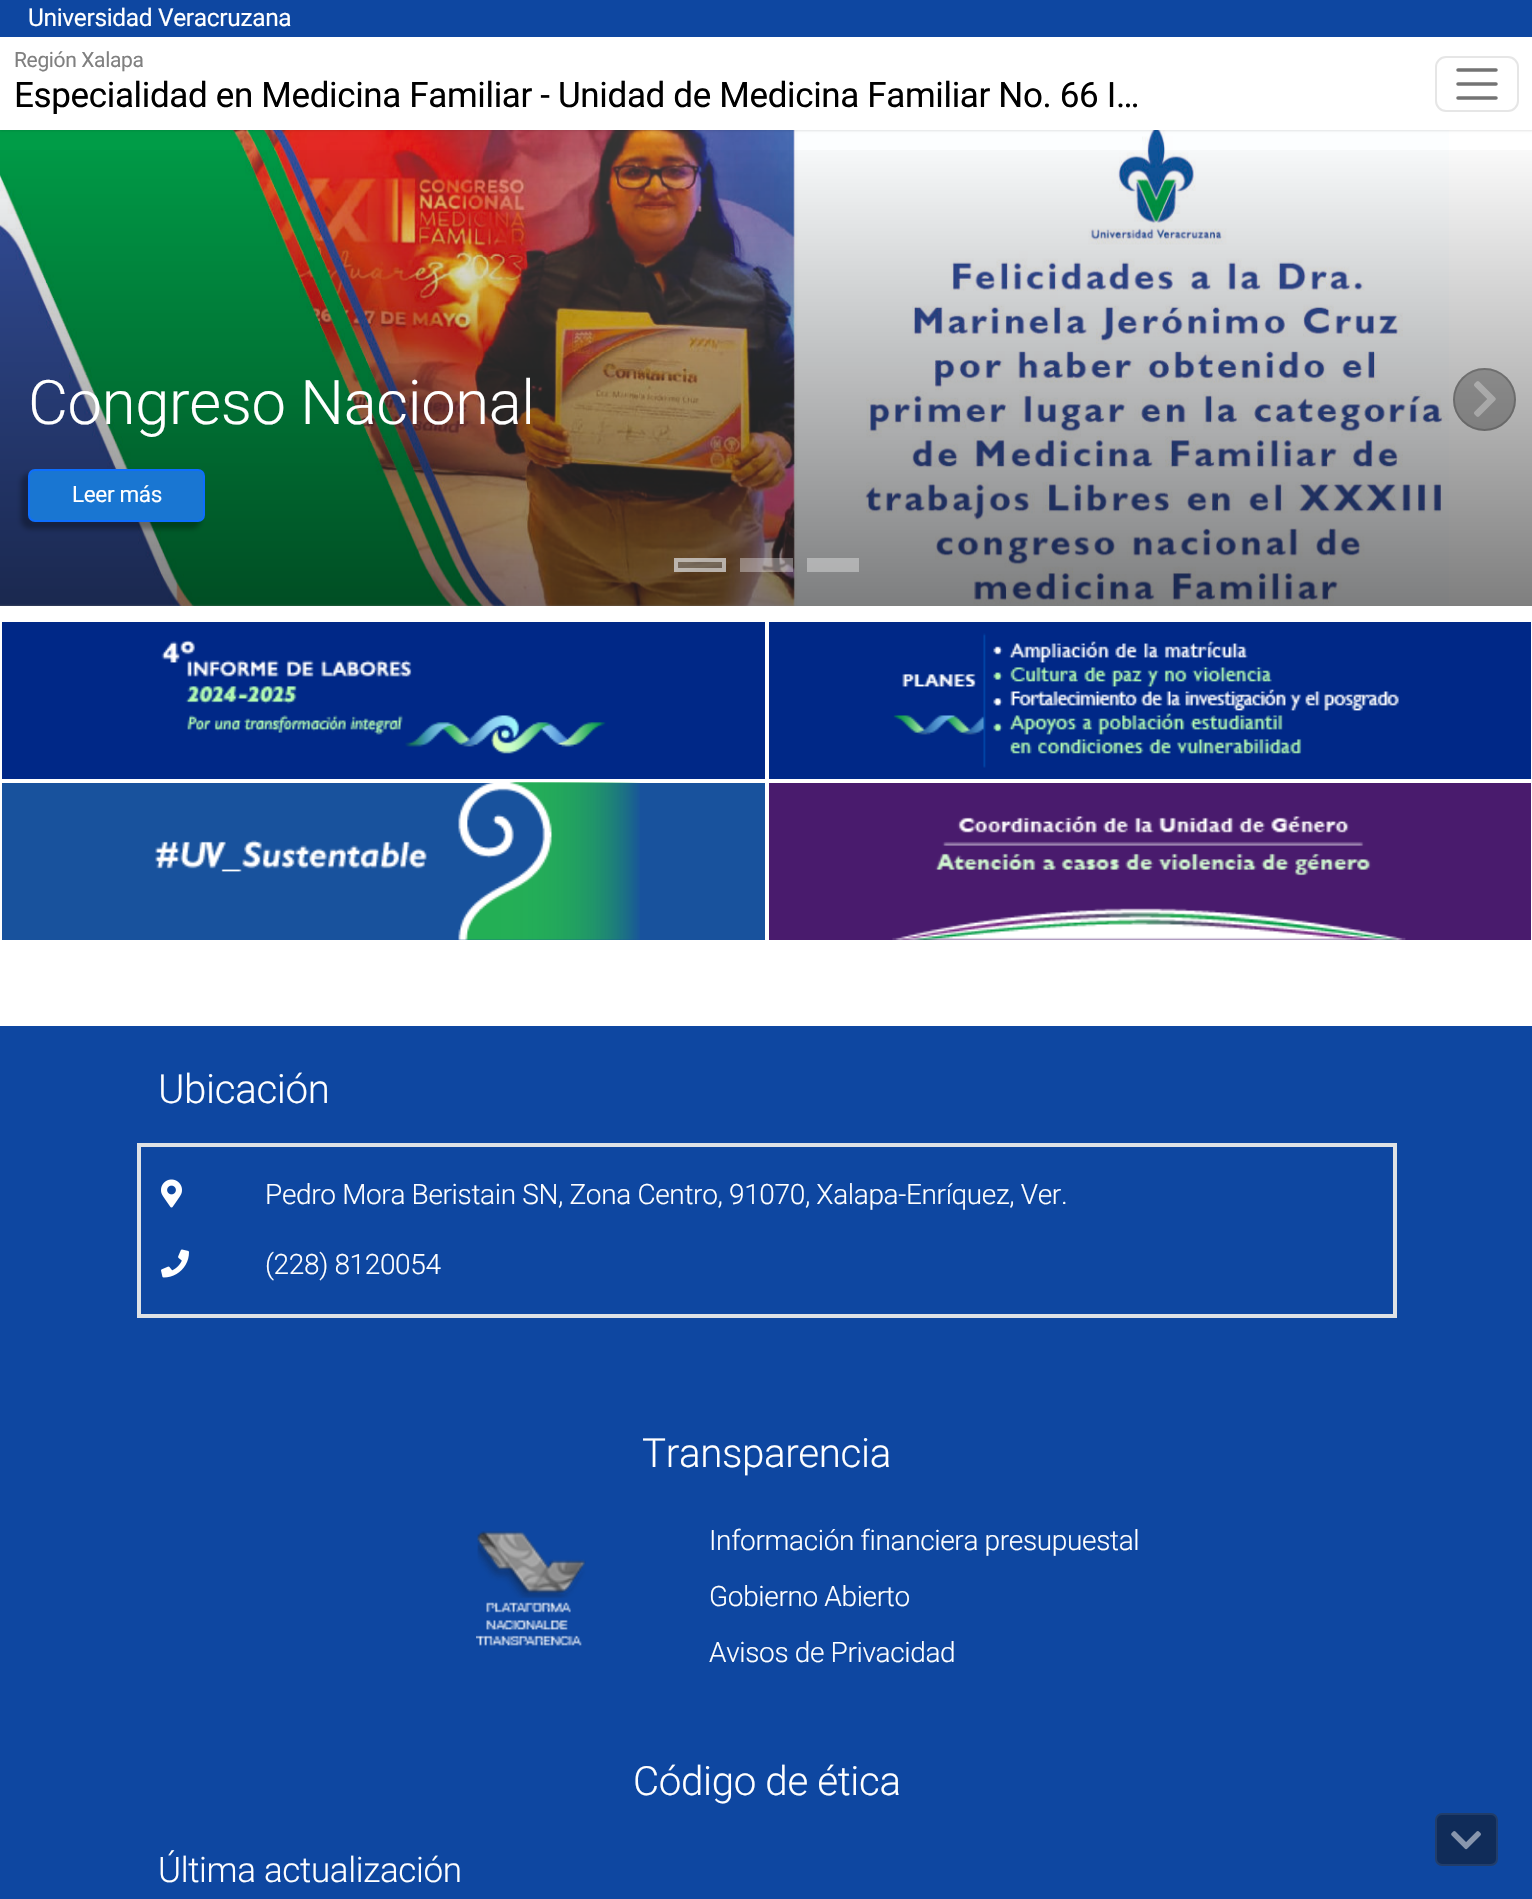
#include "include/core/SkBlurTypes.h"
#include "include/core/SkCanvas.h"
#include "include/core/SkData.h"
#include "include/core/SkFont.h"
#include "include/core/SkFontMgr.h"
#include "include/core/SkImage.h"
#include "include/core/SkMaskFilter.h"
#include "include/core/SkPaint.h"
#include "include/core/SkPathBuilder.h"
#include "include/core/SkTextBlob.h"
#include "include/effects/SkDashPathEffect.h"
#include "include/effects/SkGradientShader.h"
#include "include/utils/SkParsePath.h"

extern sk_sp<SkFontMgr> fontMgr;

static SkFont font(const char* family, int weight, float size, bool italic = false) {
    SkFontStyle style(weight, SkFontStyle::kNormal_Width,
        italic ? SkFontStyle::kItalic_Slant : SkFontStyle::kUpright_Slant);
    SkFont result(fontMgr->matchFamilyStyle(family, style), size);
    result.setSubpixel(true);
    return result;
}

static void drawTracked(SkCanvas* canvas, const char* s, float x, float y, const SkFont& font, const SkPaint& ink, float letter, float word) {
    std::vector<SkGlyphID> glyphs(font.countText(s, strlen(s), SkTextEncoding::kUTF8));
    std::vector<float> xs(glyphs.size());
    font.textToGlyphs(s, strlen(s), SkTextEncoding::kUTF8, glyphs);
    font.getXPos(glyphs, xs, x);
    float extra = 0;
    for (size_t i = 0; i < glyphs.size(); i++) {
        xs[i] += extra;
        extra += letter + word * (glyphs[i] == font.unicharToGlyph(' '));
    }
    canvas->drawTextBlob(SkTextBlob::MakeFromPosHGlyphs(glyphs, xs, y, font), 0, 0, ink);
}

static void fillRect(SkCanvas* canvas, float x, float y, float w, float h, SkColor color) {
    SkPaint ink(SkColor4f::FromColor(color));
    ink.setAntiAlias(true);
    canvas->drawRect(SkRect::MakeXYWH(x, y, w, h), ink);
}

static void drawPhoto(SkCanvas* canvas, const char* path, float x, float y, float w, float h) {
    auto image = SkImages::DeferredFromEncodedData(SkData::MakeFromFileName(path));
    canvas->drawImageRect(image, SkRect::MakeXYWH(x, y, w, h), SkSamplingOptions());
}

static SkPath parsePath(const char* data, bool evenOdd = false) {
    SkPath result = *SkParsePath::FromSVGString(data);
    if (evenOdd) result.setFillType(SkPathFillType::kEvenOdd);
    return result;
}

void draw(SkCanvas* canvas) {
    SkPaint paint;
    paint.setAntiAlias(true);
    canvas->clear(0xFFFFFFFF);
    drawPhoto(canvas, "assets/img1.png", 0, 130, 1449, 476);
    paint.setColor(0x1A000000);
    paint.setMaskFilter(SkMaskFilter::MakeBlur(kNormal_SkBlurStyle, 1));
    canvas->drawRect(SkRect::MakeXYWH(0, 2, 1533, 129), paint);
    paint.setMaskFilter(nullptr);
    fillRect(canvas, 0, 37, 1532, 93, 0xFFFFFFFF);
    fillRect(canvas, 0, 0, 1532, 37, 0xFF0E47A1);
    SkFont font1 = font("Roboto", 400, 24.5f);
    paint.setColor(0xFFFFFFFF);
    drawTracked(canvas, "Universidad Veracruzana", 28, 26, font1, paint, -0.35f, 0);
    SkFont font2 = font("Roboto", 400, 21);
    paint.setColor(0xFF808080);
    drawTracked(canvas, "Región Xalapa", 14, 67, font2, paint, -0.35f, 0);
    SkFont font3 = font("Roboto", 400, 35);
    paint.setColor(0xFF000000);
    drawTracked(canvas, "Especialidad en Medicina Familiar - Unidad de Medicina Familiar No. 66 I…", 14, 107, font3, paint, -0.35f, 0);
    paint.setStroke(true);
    paint.setStrokeWidth(2);
    paint.setColor(0xFFE6E6E6);
    canvas->drawRoundRect(SkRect::MakeXYWH(1436, 57, 82, 54), 10, 10, paint);
    paint.setStrokeWidth(3.5f);
    paint.setStrokeCap(SkPaint::kRound_Cap);
    paint.setColor(0xFF737373);
    canvas->drawPath(parsePath("M1458 70H1496M1458 84H1496M1458 98H1496"), paint);
    paint.setStroke(false);
    {
        const SkColor colors[] = {0x00000000, 0x80000000};
        const float stops[] = {0, 1};
        const SkPoint ends[] = {{767, 129}, {767, 606}};
        paint.setShader(SkGradientShader::MakeLinear(ends, colors, stops, 2, SkTileMode::kClamp));
        paint.setAlpha(255);
    }
    canvas->drawRect(SkRect::MakeXYWH(0, 150, 1532, 456), paint);
    SkFont font4 = font("Roboto", 300, 61.5f);
    paint.setShader(nullptr);
    paint.setColor(0xFFFFFFFF);
    drawTracked(canvas, "Congreso Nacional", 28, 424, font4, paint, -0.35f, 0);
    paint.setColor(0x4D000000);
    paint.setMaskFilter(SkMaskFilter::MakeBlur(kNormal_SkBlurStyle, 2.5f));
    canvas->drawRoundRect(SkRect::MakeXYWH(21, 473, 180, 56), 9, 9, paint);
    paint.setMaskFilter(nullptr);
    paint.setColor(0xFF1976D2);
    canvas->drawRoundRect(SkRect::MakeXYWH(29, 470, 175, 51), 6, 6, paint);
    paint.setStroke(true);
    paint.setStrokeWidth(2);
    paint.setStrokeCap(SkPaint::kButt_Cap);
    paint.setColor(0xFF0D6EFD);
    canvas->drawRoundRect(SkRect::MakeXYWH(29, 470, 175, 51), 6, 6, paint);
    SkFont font5 = font("Roboto", 400, 22.5f);
    paint.setStroke(false);
    paint.setColor(0xFFFFFFFF);
    drawTracked(canvas, "Leer más", 72, 502, font5, paint, -0.35f, 0);
    paint.setColor(0x4D111111);
    canvas->drawCircle(1484.5f, 399.5f, 31.5f, paint);
    paint.setStroke(true);
    paint.setColor(0x4D333333);
    canvas->drawCircle(1484.5f, 399.5f, 30.5f, paint);
    drawPhoto(canvas, "assets/img2.png", 1474, 381, 22, 36);
    fillRect(canvas, 674, 558, 52, 14, 0x80888888);
    paint.setStrokeWidth(4);
    paint.setColor(0x80FFFFFF);
    canvas->drawRect(SkRect::MakeXYWH(676, 560, 48, 10), paint);
    fillRect(canvas, 740, 558, 53, 14, 0x59FFFFFF);
    fillRect(canvas, 807, 558, 52, 14, 0x59FFFFFF);
    fillRect(canvas, 2, 622, 763, 157, 0xFF002887);
    drawPhoto(canvas, "assets/img3.png", 161, 640, 445, 114);
    fillRect(canvas, 769, 622, 762, 157, 0xFF002887);
    drawPhoto(canvas, "assets/img4.png", 893, 633, 506, 135);
    fillRect(canvas, 2, 783, 763, 157, 0xFF18529D);
    drawPhoto(canvas, "assets/img5.png", 155, 782, 485, 158);
    fillRect(canvas, 769, 783, 762, 157, 0xFF491B6D);
    drawPhoto(canvas, "assets/img6.png", 892, 816, 514, 124);
    fillRect(canvas, 0, 1026, 1532, 873, 0xFF0E47A1);
    SkFont font6 = font("Roboto", 300, 40.25f);
    paint.setStroke(false);
    paint.setColor(0xFFFFFFFF);
    drawTracked(canvas, "Ubicación", 158, 1103, font6, paint, -0.35f, 0);
    paint.setStroke(true);
    paint.setColor(0xFFDEE2E6);
    canvas->drawRect(SkRect::MakeXYWH(139, 1145, 1256, 171), paint);
    drawPhoto(canvas, "assets/img7.png", 161, 1179, 21, 29);
    SkFont font7 = font("Roboto", 300, 28);
    paint.setStroke(false);
    paint.setColor(0xFFFFFFFF);
    drawTracked(canvas, "Pedro Mora Beristain SN, Zona Centro, 91070, Xalapa-Enríquez, Ver.", 265, 1204, font7, paint, -0.35f, 0);
    drawPhoto(canvas, "assets/img8.png", 161, 1249, 28, 29);
    drawTracked(canvas, "(228) 8120054", 265, 1274, font7, paint, -0.35f, 0);
    drawTracked(canvas, "Transparencia", 642, 1467, font6, paint, -0.35f, 0);
    drawPhoto(canvas, "assets/img9.png", 476, 1531, 110, 115);
    drawTracked(canvas, "Información financiera presupuestal", 709, 1550, font7, paint, -0.35f, 0);
    drawTracked(canvas, "Gobierno Abierto", 709, 1606, font7, paint, -0.35f, 0);
    drawTracked(canvas, "Avisos de Privacidad", 709, 1662, font7, paint, -0.35f, 0);
    drawTracked(canvas, "Código de ética", 633, 1795, font6, paint, -0.35f, 0);
    SkFont font8 = font("Roboto", 300, 35);
    drawTracked(canvas, "Última actualización", 158, 1882, font8, paint, -0.35f, 0);
    paint.setColor(0xFF102C59);
    canvas->drawRoundRect(SkRect::MakeXYWH(1436, 1814, 61, 51), 6, 6, paint);
    paint.setStroke(true);
    paint.setStrokeWidth(2);
    paint.setColor(0xFF213D6A);
    canvas->drawRoundRect(SkRect::MakeXYWH(1436, 1814, 61, 51), 6, 6, paint);
    drawPhoto(canvas, "assets/img10.png", 1451, 1831, 30, 19);
}
